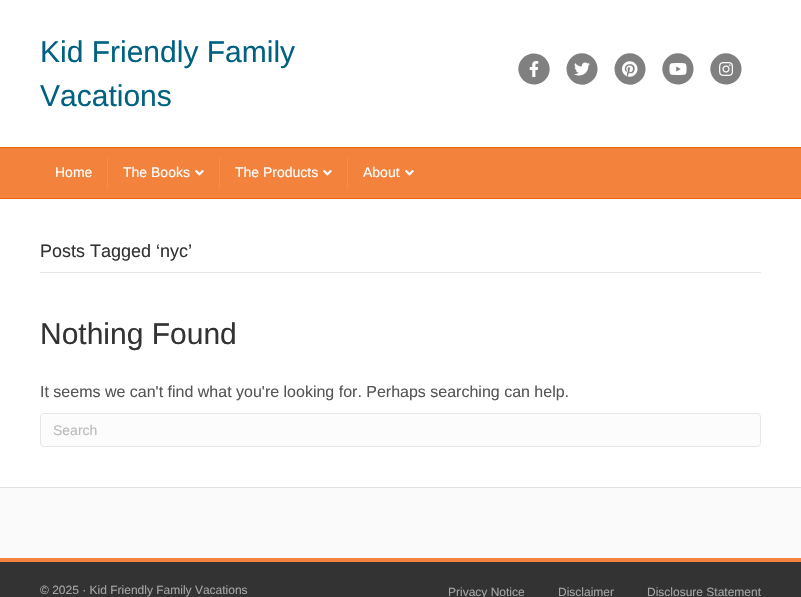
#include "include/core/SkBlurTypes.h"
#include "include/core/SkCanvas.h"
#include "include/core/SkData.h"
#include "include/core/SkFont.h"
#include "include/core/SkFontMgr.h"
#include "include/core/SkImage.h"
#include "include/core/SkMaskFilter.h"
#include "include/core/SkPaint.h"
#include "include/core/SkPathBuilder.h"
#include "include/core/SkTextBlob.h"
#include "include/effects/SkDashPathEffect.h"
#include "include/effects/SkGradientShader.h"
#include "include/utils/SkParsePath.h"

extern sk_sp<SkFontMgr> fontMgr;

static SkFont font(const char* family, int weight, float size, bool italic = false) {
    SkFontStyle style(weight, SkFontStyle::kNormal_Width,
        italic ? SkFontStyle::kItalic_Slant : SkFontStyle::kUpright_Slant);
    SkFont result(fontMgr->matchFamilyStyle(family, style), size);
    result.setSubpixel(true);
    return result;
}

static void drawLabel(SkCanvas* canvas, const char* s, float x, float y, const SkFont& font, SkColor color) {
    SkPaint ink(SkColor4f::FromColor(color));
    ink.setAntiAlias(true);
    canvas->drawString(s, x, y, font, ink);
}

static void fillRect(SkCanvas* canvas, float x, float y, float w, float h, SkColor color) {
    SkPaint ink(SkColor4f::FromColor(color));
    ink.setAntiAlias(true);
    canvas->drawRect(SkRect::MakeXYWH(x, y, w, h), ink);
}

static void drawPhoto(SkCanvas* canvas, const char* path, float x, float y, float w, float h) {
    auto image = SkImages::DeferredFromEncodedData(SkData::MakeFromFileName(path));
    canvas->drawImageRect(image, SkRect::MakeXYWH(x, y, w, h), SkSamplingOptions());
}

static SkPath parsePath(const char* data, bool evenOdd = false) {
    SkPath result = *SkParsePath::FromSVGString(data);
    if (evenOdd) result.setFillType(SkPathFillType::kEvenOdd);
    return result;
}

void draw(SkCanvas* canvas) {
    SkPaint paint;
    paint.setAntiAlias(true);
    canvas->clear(0xFFFFFFFF);
    SkFont font1 = font("Liberation Sans", 400, 30);
    drawLabel(canvas, "Kid Friendly Family", 40, 62, font1, 0xFF016181);
    drawLabel(canvas, "Vacations", 40, 106, font1, 0xFF016181);
    paint.setColor(0xFF808080);
    canvas->drawPath(parsePath("M523 58C525.5 55.5 529 54 532.5 53.5C547 52.5 555.5 69.5 545 80C542.5 82.5 539 84 535.5 84.5C521 85.5 512.5 68.5 523 58Z"), paint);
    drawPhoto(canvas, "assets/img1.png", 529, 61, 10, 16);
    canvas->drawPath(parsePath("M571 58C581.5 47.5 598.5 56 597.5 70.5C597 74 595.5 77.5 593 80C582.5 90.5 565.5 82 566.5 67.5C567 64 568.5 60.5 571 58Z"), paint);
    drawPhoto(canvas, "assets/img2.png", 574, 62, 16, 14);
    canvas->drawPath(parsePath("M619 58C629.5 47.5 646.5 56 645.5 70.5C645 74 643.5 77.5 641 80C630.5 90.5 613.5 82 614.5 67.5C615 64 616.5 60.5 619 58Z"), paint);
    drawPhoto(canvas, "assets/img3.png", 622, 61, 16, 16);
    canvas->drawPath(parsePath("M667 58C677.5 47.5 694.5 56 693.5 70.5C693 74 691.5 77.5 689 80C686.5 82.5 683 84 679.5 84.5C665 85.5 656.5 68.5 667 58Z"), paint);
    drawPhoto(canvas, "assets/img4.png", 669, 63, 18, 12);
    canvas->drawPath(parsePath("M715 58C725.5 47.5 742.5 56 741.5 70.5C741 74 739.5 77.5 737 80C734.5 82.5 731 84 727.5 84.5C713 85.5 704.5 68.5 715 58Z"), paint);
    drawPhoto(canvas, "assets/img5.png", 719, 62, 14, 14);
    fillRect(canvas, 0, 148, 801, 50, 0xFFF3823C);
    fillRect(canvas, 0, 147, 801, 1, 0xFFED640F);
    fillRect(canvas, 0, 198, 801, 1, 0xFFED640F);
    fillRect(canvas, 107, 158, 1, 30, 0xFFF48F50);
    SkFont font2 = font("Liberation Sans", 400, 14);
    drawLabel(canvas, "Home", 55, 177, font2, 0xFFFFFFFF);
    fillRect(canvas, 219, 158, 1, 30, 0xFFF48F50);
    drawLabel(canvas, "The Books", 123, 177, font2, 0xFFFFFFFF);
    drawPhoto(canvas, "assets/img6.png", 195, 170, 9, 6);
    fillRect(canvas, 347, 158, 1, 30, 0xFFF48F50);
    drawLabel(canvas, "The Products", 235, 177, font2, 0xFFFFFFFF);
    drawPhoto(canvas, "assets/img6.png", 323, 170, 9, 6);
    drawLabel(canvas, "About", 363, 177, font2, 0xFFFFFFFF);
    drawPhoto(canvas, "assets/img6.png", 405, 170, 9, 6);
    fillRect(canvas, 40, 272, 721, 1, 0xFFE6E6E6);
    SkFont font3 = font("Liberation Sans", 400, 18);
    drawLabel(canvas, "Posts Tagged ‘nyc’", 40, 257, font3, 0xFF333333);
    drawLabel(canvas, "Nothing Found", 40, 344, font1, 0xFF333333);
    SkFont font4 = font("Liberation Sans", 400, 16);
    drawLabel(canvas, "It seems we can't find what you're looking for. Perhaps searching can help.", 40, 397, font4, 0xFF565656);
    paint.setColor(0xFFFCFCFC);
    canvas->drawRoundRect(SkRect::MakeXYWH(40.5f, 413.5f, 720, 33), 3.5f, 3.5f, paint);
    paint.setStroke(true);
    paint.setStrokeWidth(1);
    paint.setColor(0xFFE6E6E6);
    canvas->drawRoundRect(SkRect::MakeXYWH(40.5f, 413.5f, 720, 33), 3.5f, 3.5f, paint);
    drawLabel(canvas, "Search", 53, 435, font2, 0xFFBABABA);
    fillRect(canvas, 0, 488, 801, 70, 0xFFFAFAFA);
    fillRect(canvas, 0, 487, 801, 1, 0xFFE1E1E1);
    fillRect(canvas, 0, 562, 801, 35, 0xFF333333);
    fillRect(canvas, 0, 558, 801, 4, 0xFFF3823C);
    SkFont font5 = font("Liberation Sans", 400, 12);
    drawLabel(canvas, "© 2025 · Kid Friendly Family Vacations", 40, 594, font5, 0xFFA6A6A6);
    drawLabel(canvas, "Privacy Notice", 448, 596, font5, 0xFFA6A6A6);
    drawLabel(canvas, "Disclaimer", 558, 596, font5, 0xFFA6A6A6);
    drawLabel(canvas, "Disclosure Statement", 647, 596, font5, 0xFFA6A6A6);
}
